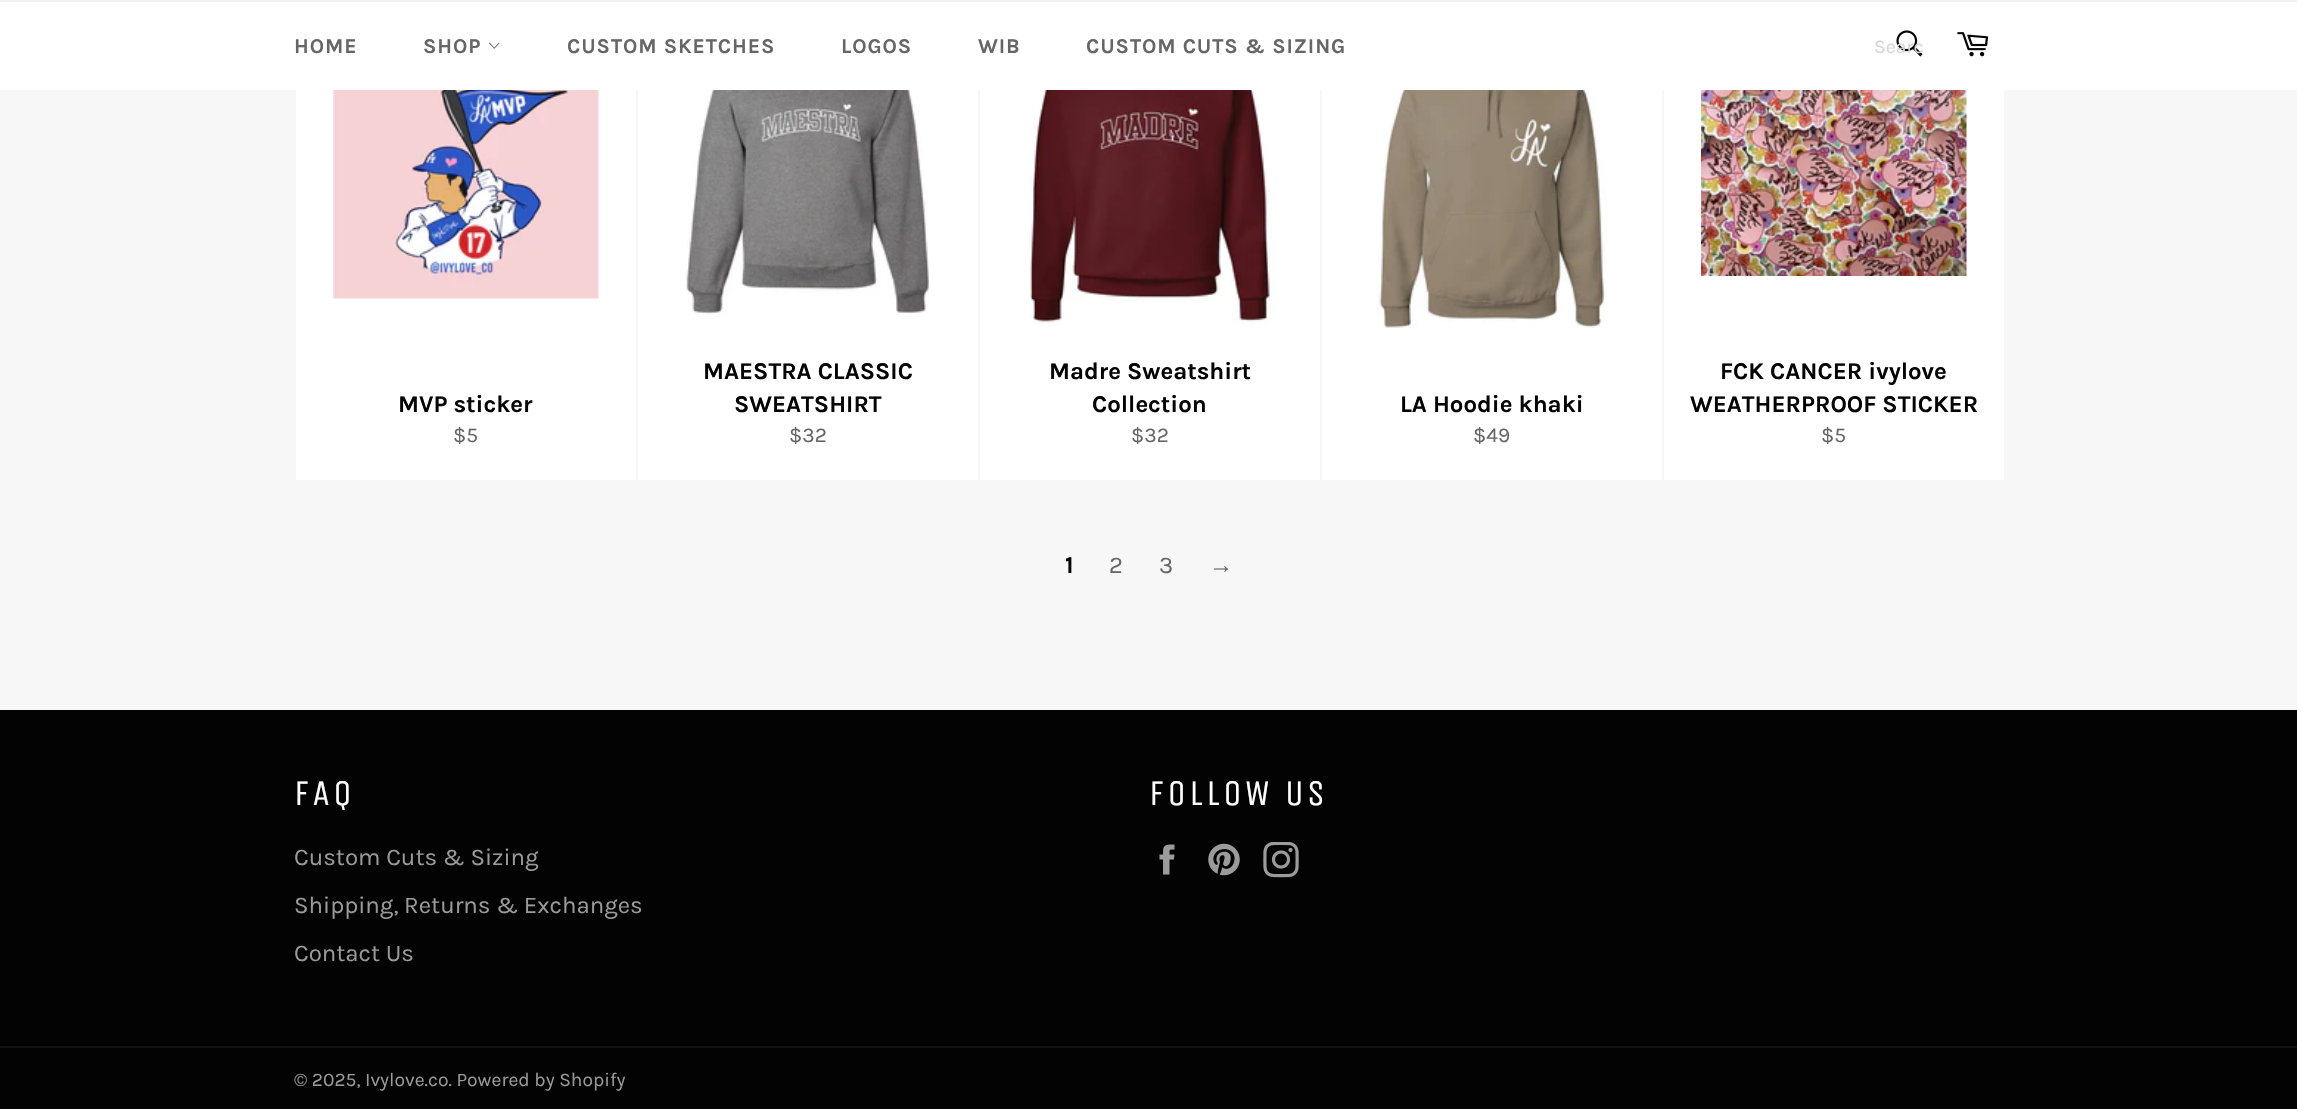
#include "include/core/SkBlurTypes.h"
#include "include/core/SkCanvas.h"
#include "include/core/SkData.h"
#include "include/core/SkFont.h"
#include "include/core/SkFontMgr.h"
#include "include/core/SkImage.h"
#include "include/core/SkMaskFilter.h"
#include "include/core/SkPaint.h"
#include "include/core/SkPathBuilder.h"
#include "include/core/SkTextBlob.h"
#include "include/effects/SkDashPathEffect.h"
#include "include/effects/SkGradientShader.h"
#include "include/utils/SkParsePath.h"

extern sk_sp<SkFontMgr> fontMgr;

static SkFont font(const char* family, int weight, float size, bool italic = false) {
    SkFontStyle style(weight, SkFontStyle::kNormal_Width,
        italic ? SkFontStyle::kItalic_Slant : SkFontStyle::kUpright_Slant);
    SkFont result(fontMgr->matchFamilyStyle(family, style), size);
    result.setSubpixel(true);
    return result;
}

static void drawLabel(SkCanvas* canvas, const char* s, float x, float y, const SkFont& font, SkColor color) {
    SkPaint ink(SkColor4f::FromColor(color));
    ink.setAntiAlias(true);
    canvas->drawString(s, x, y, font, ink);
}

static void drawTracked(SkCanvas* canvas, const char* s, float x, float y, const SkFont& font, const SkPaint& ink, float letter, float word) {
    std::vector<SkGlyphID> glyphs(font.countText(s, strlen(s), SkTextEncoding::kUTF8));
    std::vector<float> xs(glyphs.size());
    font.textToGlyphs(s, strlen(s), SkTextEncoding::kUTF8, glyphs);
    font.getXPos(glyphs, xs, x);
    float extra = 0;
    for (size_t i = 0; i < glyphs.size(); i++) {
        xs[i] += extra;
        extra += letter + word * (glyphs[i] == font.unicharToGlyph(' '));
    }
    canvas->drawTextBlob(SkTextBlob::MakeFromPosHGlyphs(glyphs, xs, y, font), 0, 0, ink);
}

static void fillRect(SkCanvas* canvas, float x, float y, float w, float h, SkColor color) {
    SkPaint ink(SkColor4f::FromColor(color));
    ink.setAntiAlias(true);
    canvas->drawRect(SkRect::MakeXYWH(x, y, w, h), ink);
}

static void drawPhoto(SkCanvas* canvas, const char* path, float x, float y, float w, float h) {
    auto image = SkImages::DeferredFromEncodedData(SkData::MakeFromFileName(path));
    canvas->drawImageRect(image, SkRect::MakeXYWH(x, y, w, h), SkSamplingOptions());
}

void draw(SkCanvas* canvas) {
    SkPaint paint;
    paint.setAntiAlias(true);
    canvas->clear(0xFFF7F7F7);
    fillRect(canvas, 0, 2, 2297, 88, 0xFFFFFFFF);
    fillRect(canvas, 0, 0, 2297, 2, 0xFFF2F2F2);
    SkFont font1 = font("Karla", 700, 21);
    paint.setColor(0xFF666666);
    drawTracked(canvas, "HOME", 294, 53, font1, paint, 0.9f, 0);
    drawTracked(canvas, "SHOP", 423, 53, font1, paint, 0.9f, 0);
    drawPhoto(canvas, "assets/img1.png", 489, 42, 11, 7);
    drawTracked(canvas, "CUSTOM SKETCHES", 567, 53, font1, paint, 0.9f, 0);
    drawTracked(canvas, "LOGOS", 841, 53, font1, paint, 0.9f, 0);
    drawTracked(canvas, "WIB", 978, 53, font1, paint, 0.9f, 0);
    drawTracked(canvas, "CUSTOM CUTS & SIZING", 1086, 53, font1, paint, 0.9f, 0);
    drawPhoto(canvas, "assets/img2.png", 1896, 30, 27, 27);
    SkFont font2 = font("Karla", 400, 19.5f);
    drawLabel(canvas, "Searc", 1874, 53, font2, 0xFFD6D6D6);
    drawPhoto(canvas, "assets/img3.png", 1957, 32, 31, 25);
    fillRect(canvas, 296, 90, 340, 390, 0xFFFFFFFF);
    drawPhoto(canvas, "assets/img4.png", 333, 90, 266, 209);
    SkFont font3 = font("Karla", 700, 24);
    drawLabel(canvas, "MVP sticker", 398, 412, font3, 0xFF030303);
    SkFont font4 = font("Karla", 400, 21);
    drawLabel(canvas, "$5", 453, 442, font4, 0xFF666666);
    fillRect(canvas, 638, 90, 340, 390, 0xFFFFFFFF);
    drawPhoto(canvas, "assets/img5.png", 686, 90, 243, 227);
    drawLabel(canvas, "MAESTRA CLASSIC", 703, 379, font3, 0xFF030303);
    drawLabel(canvas, "SWEATSHIRT", 734, 412, font3, 0xFF030303);
    drawLabel(canvas, "$32", 789, 442, font4, 0xFF666666);
    fillRect(canvas, 980, 90, 340, 390, 0xFFFFFFFF);
    drawPhoto(canvas, "assets/img6.png", 1029, 90, 247, 234);
    drawLabel(canvas, "Madre Sweatshirt", 1049, 379, font3, 0xFF030303);
    drawLabel(canvas, "Collection", 1092, 412, font3, 0xFF030303);
    drawLabel(canvas, "$32", 1131, 442, font4, 0xFF666666);
    fillRect(canvas, 1322, 90, 340, 390, 0xFFFFFFFF);
    drawPhoto(canvas, "assets/img7.png", 1377, 90, 230, 239);
    drawLabel(canvas, "LA Hoodie khaki", 1400, 412, font3, 0xFF030303);
    drawLabel(canvas, "$49", 1473, 442, font4, 0xFF666666);
    fillRect(canvas, 1664, 90, 340, 390, 0xFFFFFFFF);
    drawPhoto(canvas, "assets/img8.png", 1701, 90, 266, 186);
    drawLabel(canvas, "FCK CANCER ivylove", 1720, 379, font3, 0xFF030303);
    drawLabel(canvas, "WEATHERPROOF STICKER", 1690, 412, font3, 0xFF030303);
    drawLabel(canvas, "$5", 1821, 442, font4, 0xFF666666);
    drawLabel(canvas, "1", 1065, 573, font3, 0xFF030303);
    SkFont font5 = font("Karla", 400, 24);
    drawLabel(canvas, "2", 1109, 573, font5, 0xFF666666);
    drawLabel(canvas, "3", 1159, 573, font5, 0xFF666666);
    SkFont font6 = font("Liberation Sans", 400, 24);
    drawLabel(canvas, "→", 1209, 573, font6, 0xFF666666);
    fillRect(canvas, 0, 710, 2297, 399, 0xFF030303);
    SkFont font7 = font("Unica One", 400, 36);
    paint.setColor(0xFFFFFFFF);
    drawTracked(canvas, "FAQ", 294, 805, font7, paint, 3.5f, 0);
    drawLabel(canvas, "Custom Cuts & Sizing", 294, 865, font5, 0xFF9A9A9A);
    drawLabel(canvas, "Shipping, Returns & Exchanges", 294, 913, font5, 0xFF9A9A9A);
    drawLabel(canvas, "Contact Us", 294, 961, font5, 0xFF9A9A9A);
    drawTracked(canvas, "FOLLOW US", 1149, 805, font7, paint, 3.5f, 0);
    drawPhoto(canvas, "assets/img9.png", 1159, 844, 16, 31);
    drawPhoto(canvas, "assets/img10.png", 1208, 843, 32, 33);
    drawPhoto(canvas, "assets/img11.png", 1263, 842, 36, 36);
    fillRect(canvas, 0, 1046, 2297, 2, 0xFF101010);
    SkFont font8 = font("Karla", 400, 19.25f);
    drawLabel(canvas, "© 2025, Ivylove.co. Powered by Shopify", 294, 1086, font8, 0xFF9A9A9A);
}
